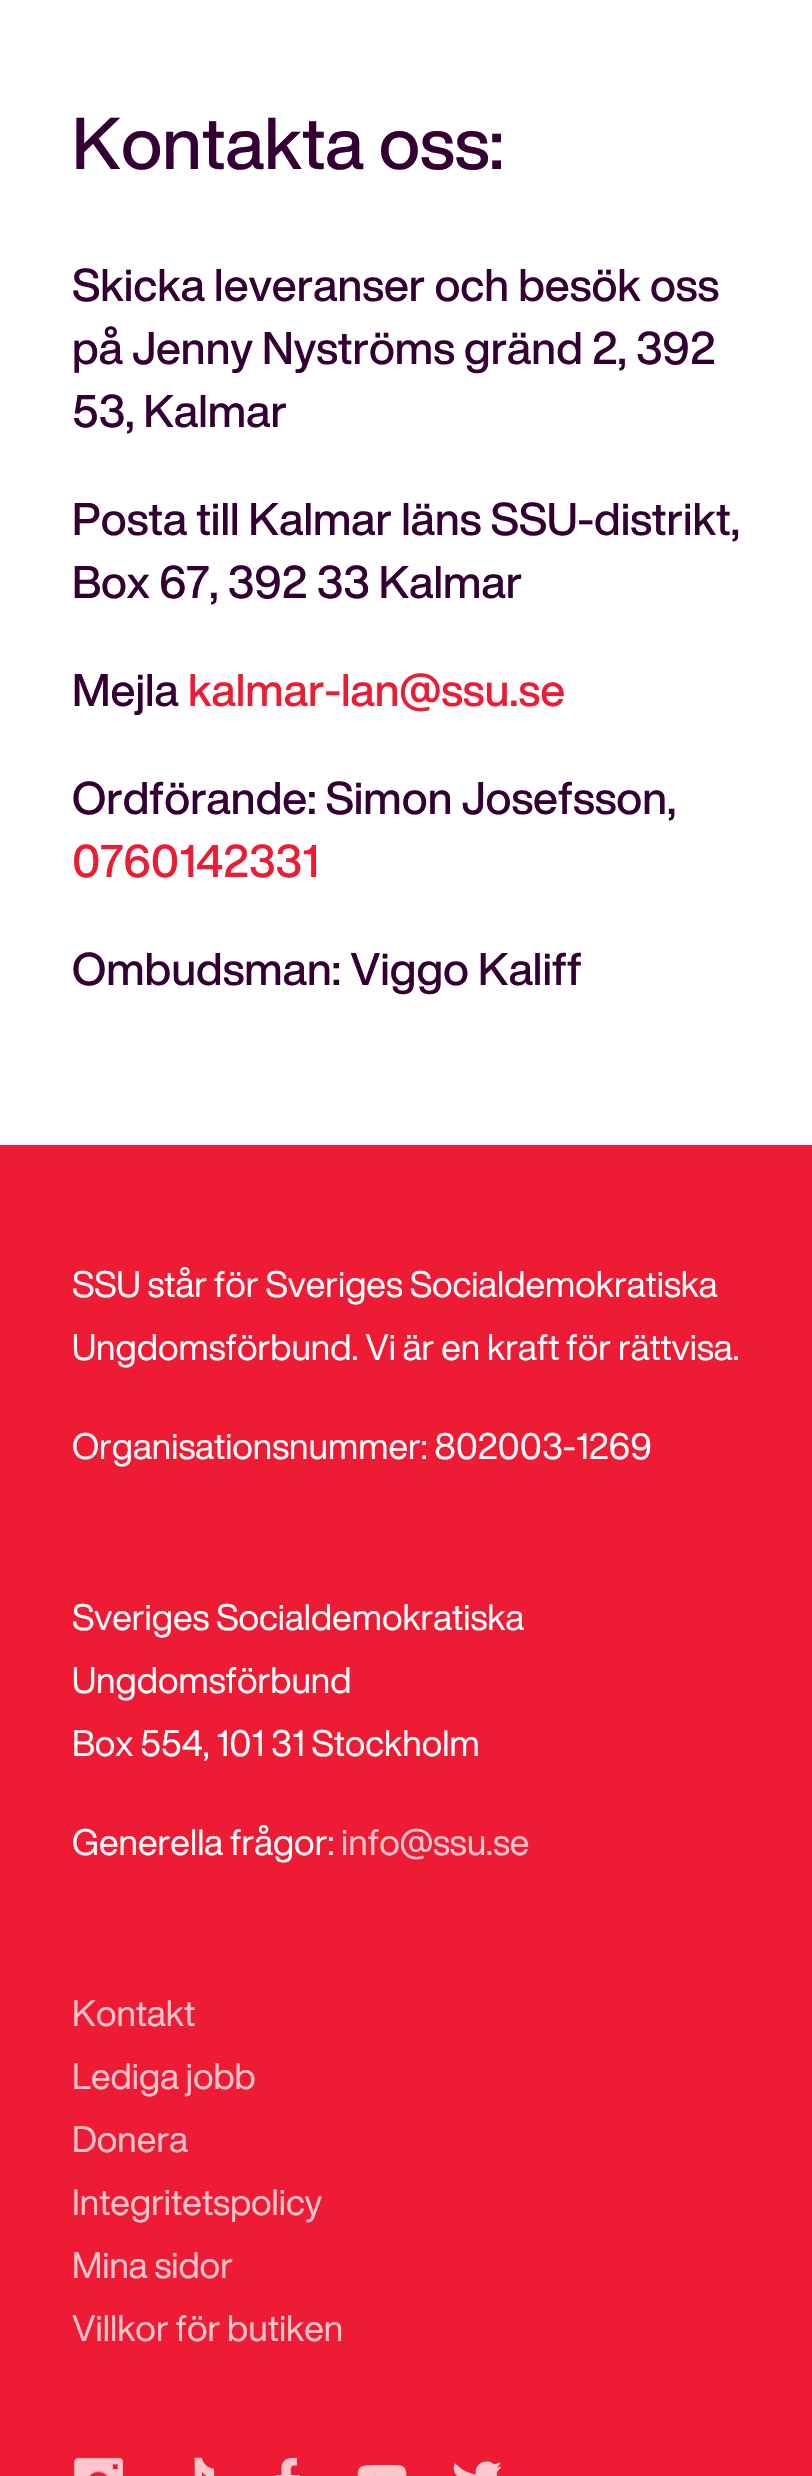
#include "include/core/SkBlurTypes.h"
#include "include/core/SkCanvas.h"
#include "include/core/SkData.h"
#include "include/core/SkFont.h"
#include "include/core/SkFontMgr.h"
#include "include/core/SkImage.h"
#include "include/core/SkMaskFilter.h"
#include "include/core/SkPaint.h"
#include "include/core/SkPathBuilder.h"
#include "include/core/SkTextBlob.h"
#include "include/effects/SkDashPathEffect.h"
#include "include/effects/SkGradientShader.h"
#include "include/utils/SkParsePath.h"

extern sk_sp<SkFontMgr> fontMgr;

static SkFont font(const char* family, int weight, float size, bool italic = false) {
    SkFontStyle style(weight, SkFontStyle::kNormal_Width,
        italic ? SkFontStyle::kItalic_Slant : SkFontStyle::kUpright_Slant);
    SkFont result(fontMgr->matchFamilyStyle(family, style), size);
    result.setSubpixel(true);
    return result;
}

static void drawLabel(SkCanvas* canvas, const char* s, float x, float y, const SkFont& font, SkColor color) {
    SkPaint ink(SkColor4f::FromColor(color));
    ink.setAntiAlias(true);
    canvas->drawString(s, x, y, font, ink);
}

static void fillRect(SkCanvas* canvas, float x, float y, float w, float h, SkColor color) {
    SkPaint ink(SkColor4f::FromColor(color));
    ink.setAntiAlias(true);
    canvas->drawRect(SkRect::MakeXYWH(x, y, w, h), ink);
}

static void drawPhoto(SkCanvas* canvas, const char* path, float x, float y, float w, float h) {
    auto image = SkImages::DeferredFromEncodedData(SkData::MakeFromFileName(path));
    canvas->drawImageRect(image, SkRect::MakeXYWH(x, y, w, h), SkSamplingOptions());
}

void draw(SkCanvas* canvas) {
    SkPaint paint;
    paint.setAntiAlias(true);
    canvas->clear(0xFFFFFFFF);
    SkFont font1 = font("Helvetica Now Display", 500, 72);
    drawLabel(canvas, "Kontakta oss:", 72, 169, font1, 0xFF340034);
    SkFont font2 = font("Helvetica Now Display", 500, 45);
    drawLabel(canvas, "Skicka leveranser och besök oss", 72, 301, font2, 0xFF340034);
    drawLabel(canvas, "på Jenny Nyströms gränd 2, 392", 72, 364, font2, 0xFF340034);
    drawLabel(canvas, "53, Kalmar", 72, 427, font2, 0xFF340034);
    drawLabel(canvas, "Posta till Kalmar läns SSU-distrikt,", 72, 535, font2, 0xFF340034);
    drawLabel(canvas, "Box 67, 392 33 Kalmar", 72, 598, font2, 0xFF340034);
    drawLabel(canvas, "Mejla", 72, 706, font2, 0xFF340034);
    drawLabel(canvas, "kalmar-lan@ssu.se", 188, 706, font2, 0xFFED1B34);
    drawLabel(canvas, "Ordförande: Simon Josefsson,", 72, 814, font2, 0xFF340034);
    drawLabel(canvas, "0760142331", 72, 877, font2, 0xFFED1B34);
    drawLabel(canvas, "Ombudsman: Viggo Kaliff", 72, 985, font2, 0xFF340034);
    fillRect(canvas, 0, 1145, 812, 1331, 0xFFED1B34);
    SkFont font3 = font("Helvetica Now Display", 400, 36);
    drawLabel(canvas, "SSU står för Sveriges Socialdemokratiska", 72, 1297, font3, 0xFFFFFFFF);
    drawLabel(canvas, "Ungdomsförbund. Vi är en kraft för rättvisa.", 72, 1360, font3, 0xFFFFFFFF);
    drawLabel(canvas, "Organisationsnummer: 802003-1269", 72, 1459, font3, 0xFFFFFFFF);
    drawLabel(canvas, "Sveriges Socialdemokratiska", 72, 1630, font3, 0xFFFFFFFF);
    drawLabel(canvas, "Ungdomsförbund", 72, 1693, font3, 0xFFFFFFFF);
    drawLabel(canvas, "Box 554, 101 31 Stockholm", 72, 1756, font3, 0xFFFFFFFF);
    drawLabel(canvas, "Generella frågor:", 72, 1855, font3, 0xFFFFFFFF);
    drawLabel(canvas, "info@ssu.se", 341, 1855, font3, 0xFFFBC6CC);
    drawLabel(canvas, "Kontakt", 72, 2026, font3, 0xFFFBC6CC);
    drawLabel(canvas, "Lediga jobb", 72, 2089, font3, 0xFFFBC6CC);
    drawLabel(canvas, "Donera", 72, 2152, font3, 0xFFFBC6CC);
    drawLabel(canvas, "Integritetspolicy", 72, 2215, font3, 0xFFFBC6CC);
    drawLabel(canvas, "Mina sidor", 72, 2278, font3, 0xFFFBC6CC);
    drawLabel(canvas, "Villkor för butiken", 72, 2341, font3, 0xFFFBC6CC);
    drawPhoto(canvas, "assets/img1.png", 74, 2457, 50, 19);
    drawPhoto(canvas, "assets/img2.png", 194, 2457, 21, 19);
    drawPhoto(canvas, "assets/img3.png", 275, 2458, 25, 18);
    drawPhoto(canvas, "assets/img4.png", 357, 2465, 50, 11);
    drawPhoto(canvas, "assets/img5.png", 453, 2461, 49, 15);
}
